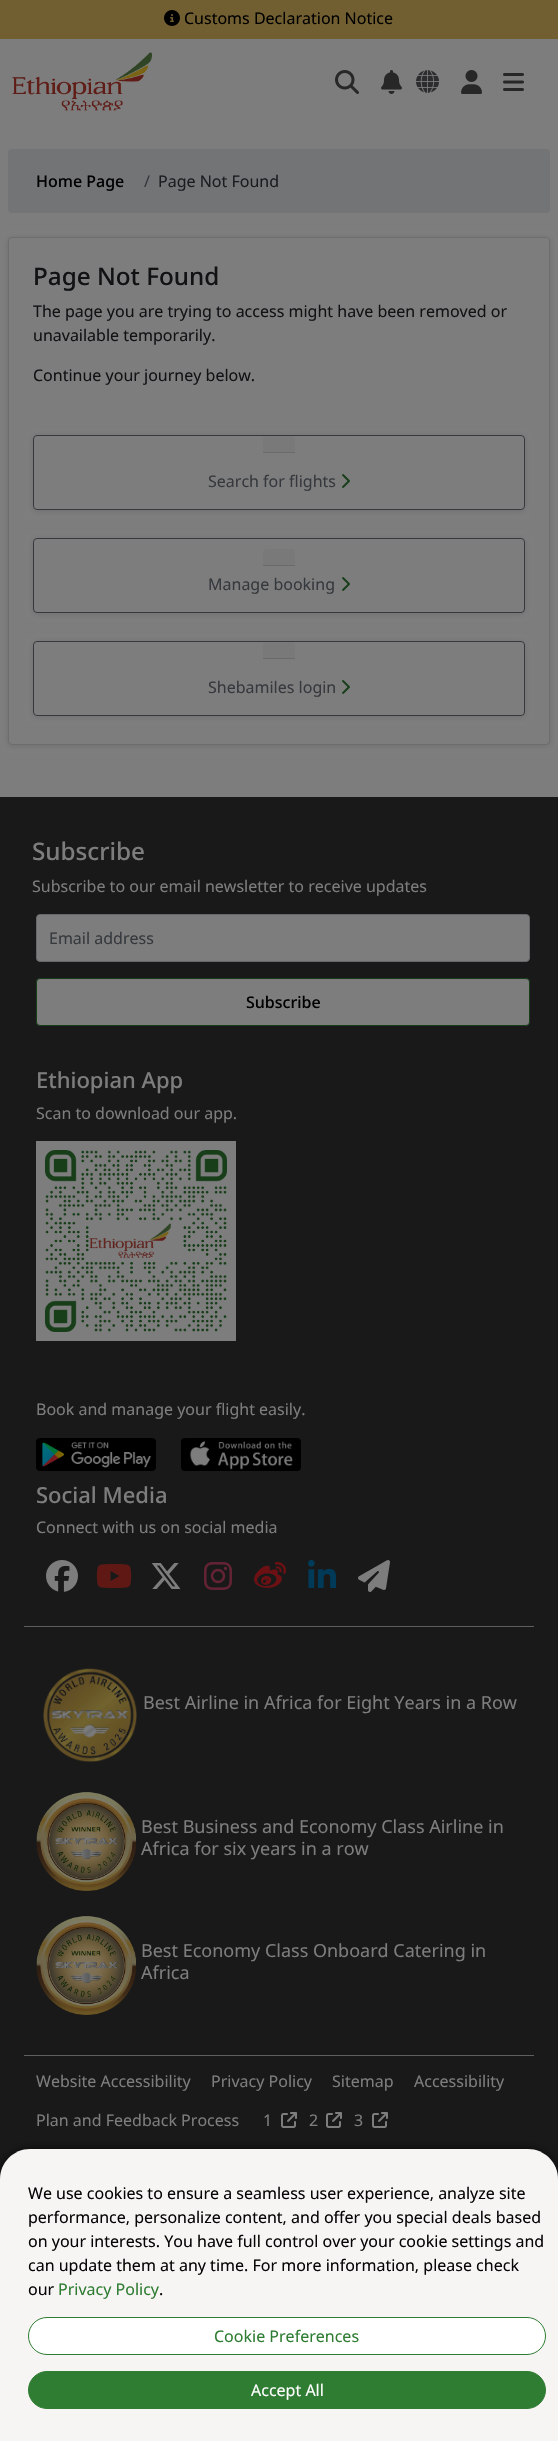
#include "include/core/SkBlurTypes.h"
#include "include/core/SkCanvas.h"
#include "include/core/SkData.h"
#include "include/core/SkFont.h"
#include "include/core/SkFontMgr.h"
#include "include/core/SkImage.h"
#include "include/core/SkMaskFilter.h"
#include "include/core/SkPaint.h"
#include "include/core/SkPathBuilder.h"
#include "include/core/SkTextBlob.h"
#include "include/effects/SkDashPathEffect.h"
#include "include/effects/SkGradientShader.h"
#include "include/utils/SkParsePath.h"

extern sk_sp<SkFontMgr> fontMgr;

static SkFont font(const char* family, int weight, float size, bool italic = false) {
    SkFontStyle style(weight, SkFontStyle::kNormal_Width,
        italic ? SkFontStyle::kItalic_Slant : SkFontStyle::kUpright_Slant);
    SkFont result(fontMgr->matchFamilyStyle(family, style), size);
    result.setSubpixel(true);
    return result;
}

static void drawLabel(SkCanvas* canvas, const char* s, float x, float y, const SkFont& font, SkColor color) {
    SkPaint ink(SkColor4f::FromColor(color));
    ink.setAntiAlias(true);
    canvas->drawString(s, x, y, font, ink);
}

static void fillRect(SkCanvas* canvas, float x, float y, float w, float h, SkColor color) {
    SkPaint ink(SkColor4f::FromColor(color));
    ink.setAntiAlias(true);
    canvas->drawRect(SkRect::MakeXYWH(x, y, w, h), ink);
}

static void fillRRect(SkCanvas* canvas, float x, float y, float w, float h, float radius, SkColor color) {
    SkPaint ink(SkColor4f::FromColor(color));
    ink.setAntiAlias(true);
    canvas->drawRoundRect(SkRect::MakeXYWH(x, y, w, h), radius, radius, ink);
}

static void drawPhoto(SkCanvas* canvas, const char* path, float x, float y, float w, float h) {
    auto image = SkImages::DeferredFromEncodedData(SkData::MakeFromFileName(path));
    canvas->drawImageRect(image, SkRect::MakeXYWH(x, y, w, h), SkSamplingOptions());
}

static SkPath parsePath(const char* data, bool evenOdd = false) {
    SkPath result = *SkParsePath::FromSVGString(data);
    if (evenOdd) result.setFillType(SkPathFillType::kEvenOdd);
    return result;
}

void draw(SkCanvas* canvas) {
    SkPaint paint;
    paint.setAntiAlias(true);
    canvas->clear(0xFF7D7D7D);
    fillRect(canvas, 0, 0, 558, 39, 0xFF725F31);
    drawPhoto(canvas, "assets/img1.png", 164, 10, 16, 16);
    SkFont font1 = font("Noto Sans", 400, 16);
    drawLabel(canvas, "Customs Declaration Notice", 184, 24, font1, 0xFF000000);
    drawPhoto(canvas, "assets/img2.png", 12, 52, 140, 59);
    drawPhoto(canvas, "assets/img3.png", 335, 70, 24, 24);
    drawPhoto(canvas, "assets/img4.png", 381, 70, 21, 24);
    drawPhoto(canvas, "assets/img5.png", 416, 70, 23, 23);
    drawPhoto(canvas, "assets/img6.png", 461, 70, 21, 24);
    drawPhoto(canvas, "assets/img7.png", 503, 73, 21, 18);
    fillRRect(canvas, 8, 149, 542, 64, 4, 0xFF727475);
    SkFont font2 = font("Noto Sans", 500, 16);
    drawLabel(canvas, "Home Page", 36, 187, font2, 0xFF000000);
    drawLabel(canvas, "/", 144, 187, font1, 0xFF35393D);
    drawLabel(canvas, "Page Not Found", 158, 187, font1, 0xFF1A1D20);
    paint.setColor(0x21101012);
    paint.setMaskFilter(SkMaskFilter::MakeBlur(kNormal_SkBlurStyle, 3));
    canvas->drawRoundRect(SkRect::MakeXYWH(8, 238, 542, 508), 4, 4, paint);
    paint.setMaskFilter(nullptr);
    paint.setColor(0xFF7D7D7D);
    canvas->drawRoundRect(SkRect::MakeXYWH(8.5f, 237.5f, 541, 507), 3.5f, 3.5f, paint);
    paint.setStroke(true);
    paint.setStrokeWidth(1);
    paint.setColor(0xFF6D6D6D);
    canvas->drawRoundRect(SkRect::MakeXYWH(8.5f, 237.5f, 541, 507), 3.5f, 3.5f, paint);
    SkFont font3 = font("Noto Sans", 500, 24.25f);
    drawLabel(canvas, "Page Not Found", 33, 285, font3, 0xFF101214);
    drawLabel(canvas, "The page you are trying to access might have been removed or", 33, 317, font1, 0xFF101214);
    drawLabel(canvas, "unavailable temporarily.", 33, 341, font1, 0xFF101214);
    drawLabel(canvas, "Continue your journey below.", 33, 381, font1, 0xFF101214);
    paint.setStroke(false);
    paint.setColor(0x21101012);
    paint.setMaskFilter(SkMaskFilter::MakeBlur(kNormal_SkBlurStyle, 3));
    canvas->drawRoundRect(SkRect::MakeXYWH(33, 436, 492, 75), 4, 4, paint);
    paint.setMaskFilter(nullptr);
    paint.setColor(0xFF7D7D7D);
    canvas->drawRoundRect(SkRect::MakeXYWH(33.5f, 435.5f, 491, 74), 3.5f, 3.5f, paint);
    paint.setStroke(true);
    paint.setColor(0xFF35393D);
    canvas->drawRoundRect(SkRect::MakeXYWH(33.5f, 435.5f, 491, 74), 3.5f, 3.5f, paint);
    paint.setStroke(false);
    paint.setColor(0xFF797979);
    canvas->drawPath(parsePath("M266 436H292C293.5 436 295 437.5 295 439V453H263V439C263 437.5 264.5 436 266 436Z"), paint);
    fillRect(canvas, 263, 452, 32, 1, 0xFF6A6A6A);
    drawLabel(canvas, "Search for flights", 208, 487, font1, 0xFF35393D);
    drawPhoto(canvas, "assets/img8.png", 342, 474, 8, 14);
    paint.setColor(0x21101012);
    paint.setMaskFilter(SkMaskFilter::MakeBlur(kNormal_SkBlurStyle, 3));
    canvas->drawRoundRect(SkRect::MakeXYWH(33, 539, 492, 75), 4, 4, paint);
    paint.setMaskFilter(nullptr);
    paint.setColor(0xFF7D7D7D);
    canvas->drawRoundRect(SkRect::MakeXYWH(33.5f, 538.5f, 491, 74), 3.5f, 3.5f, paint);
    paint.setStroke(true);
    paint.setColor(0xFF35393D);
    canvas->drawRoundRect(SkRect::MakeXYWH(33.5f, 538.5f, 491, 74), 3.5f, 3.5f, paint);
    paint.setStroke(false);
    paint.setColor(0xFF797979);
    canvas->drawPath(parsePath("M266 549H292C293.5 549 295 550.5 295 552V566H263V552C263 550.5 264.5 549 266 549Z"), paint);
    fillRect(canvas, 263, 565, 32, 1, 0xFF6A6A6A);
    drawLabel(canvas, "Manage booking", 208, 590, font1, 0xFF35393D);
    drawPhoto(canvas, "assets/img8.png", 342, 577, 8, 14);
    paint.setColor(0x21101012);
    paint.setMaskFilter(SkMaskFilter::MakeBlur(kNormal_SkBlurStyle, 3));
    canvas->drawRoundRect(SkRect::MakeXYWH(33, 642, 492, 75), 4, 4, paint);
    paint.setMaskFilter(nullptr);
    paint.setColor(0xFF7D7D7D);
    canvas->drawRoundRect(SkRect::MakeXYWH(33.5f, 641.5f, 491, 74), 3.5f, 3.5f, paint);
    paint.setStroke(true);
    paint.setColor(0xFF35393D);
    canvas->drawRoundRect(SkRect::MakeXYWH(33.5f, 641.5f, 491, 74), 3.5f, 3.5f, paint);
    paint.setStroke(false);
    paint.setColor(0xFF797979);
    canvas->drawPath(parsePath("M266 642H292C293.5 642 295 643.5 295 645V659H263V645C263 643.5 264.5 642 266 642Z"), paint);
    fillRect(canvas, 263, 658, 32, 1, 0xFF6A6A6A);
    drawLabel(canvas, "Shebamiles login", 208, 693, font1, 0xFF35393D);
    drawPhoto(canvas, "assets/img8.png", 342, 680, 8, 14);
    fillRect(canvas, 0, 797, 558, 1382, 0xFF191919);
    fillRect(canvas, 24, 1626, 510, 1, 0xFF5E5F60);
    drawLabel(canvas, "Subscribe", 32, 860, font3, 0xFF7D7D7D);
    drawLabel(canvas, "Subscribe to our email newsletter to receive updates", 32, 892, font1, 0xFF7D7D7D);
    paint.setColor(0xFF7D7D7D);
    canvas->drawRoundRect(SkRect::MakeXYWH(36.5f, 914.5f, 493, 47), 3.5f, 3.5f, paint);
    paint.setStroke(true);
    paint.setColor(0xFF65686B);
    canvas->drawRoundRect(SkRect::MakeXYWH(36.5f, 914.5f, 493, 47), 3.5f, 3.5f, paint);
    drawLabel(canvas, "Email address", 49, 944, font1, 0xFF35393D);
    paint.setStroke(false);
    paint.setColor(0xFF7D7D7D);
    canvas->drawRoundRect(SkRect::MakeXYWH(36.5f, 978.5f, 493, 47), 3.5f, 3.5f, paint);
    paint.setStroke(true);
    paint.setColor(0xFF173D19);
    canvas->drawRoundRect(SkRect::MakeXYWH(36.5f, 978.5f, 493, 47), 3.5f, 3.5f, paint);
    drawLabel(canvas, "Subscribe", 246, 1008, font2, 0xFF000000);
    SkFont font4 = font("Noto Sans", 500, 22);
    drawLabel(canvas, "Ethiopian App", 36, 1088, font4, 0xFF7D7D7D);
    drawLabel(canvas, "Scan to download our app.", 36, 1119, font1, 0xFF7D7D7D);
    drawPhoto(canvas, "assets/img9.png", 36, 1141, 200, 200);
    drawLabel(canvas, "Book and manage your flight easily.", 36, 1415, font1, 0xFF7D7D7D);
    drawPhoto(canvas, "assets/img10.png", 36, 1438, 120, 33);
    drawPhoto(canvas, "assets/img11.png", 181, 1438, 120, 33);
    drawLabel(canvas, "Social Media", 36, 1503, font4, 0xFF7D7D7D);
    drawLabel(canvas, "Connect with us on social media", 36, 1533, font1, 0xFF7D7D7D);
    drawPhoto(canvas, "assets/img12.png", 46, 1560, 32, 32);
    drawPhoto(canvas, "assets/img13.png", 96, 1564, 36, 24);
    drawPhoto(canvas, "assets/img14.png", 151, 1563, 30, 26);
    drawPhoto(canvas, "assets/img15.png", 204, 1562, 28, 28);
    drawPhoto(canvas, "assets/img16.png", 254, 1562, 32, 26);
    drawPhoto(canvas, "assets/img17.png", 308, 1560, 28, 28);
    drawPhoto(canvas, "assets/img18.png", 358, 1560, 32, 32);
    fillRect(canvas, 24, 2055, 510, 1, 0xFF5E5F60);
    drawPhoto(canvas, "assets/img19.png", 43, 1668, 94, 94);
    SkFont font5 = font("Noto Sans", 400, 18);
    drawLabel(canvas, "Best Airline in Africa for Eight Years in a Row", 143, 1709, font5, 0xFF7D7D7D);
    drawPhoto(canvas, "assets/img20.png", 36, 1792, 100, 99);
    drawLabel(canvas, "Best Business and Economy Class Airline in", 141, 1833, font5, 0xFF7D7D7D);
    drawLabel(canvas, "Africa for six years in a row", 141, 1855, font5, 0xFF7D7D7D);
    drawPhoto(canvas, "assets/img21.png", 36, 1916, 100, 99);
    drawLabel(canvas, "Best Economy Class Onboard Catering in", 141, 1957, font5, 0xFF7D7D7D);
    drawLabel(canvas, "Africa", 141, 1979, font5, 0xFF7D7D7D);
    drawLabel(canvas, "Website Accessibility", 36, 2087, font1, 0xFF7D7D7D);
    drawLabel(canvas, "Privacy Policy", 211, 2087, font1, 0xFF7D7D7D);
    drawLabel(canvas, "Sitemap", 332, 2087, font1, 0xFF7D7D7D);
    drawLabel(canvas, "Accessibility", 414, 2087, font1, 0xFF7D7D7D);
    drawLabel(canvas, "Plan and Feedback Process", 36, 2126, font1, 0xFF7D7D7D);
    drawLabel(canvas, "1", 263, 2126, font1, 0xFF7D7D7D);
    drawPhoto(canvas, "assets/img22.png", 281, 2112, 16, 16);
    drawLabel(canvas, "2", 309, 2126, font1, 0xFF7D7D7D);
    drawPhoto(canvas, "assets/img22.png", 326, 2112, 16, 16);
    drawLabel(canvas, "3", 354, 2126, font1, 0xFF7D7D7D);
    drawPhoto(canvas, "assets/img22.png", 372, 2112, 16, 16);
    paint.setStroke(false);
    paint.setColor(0xB3000000);
    paint.setMaskFilter(SkMaskFilter::MakeBlur(kNormal_SkBlurStyle, 4.5f));
    canvas->drawRoundRect(SkRect::MakeXYWH(0, 2149, 558, 292), 30, 30, paint);
    paint.setMaskFilter(nullptr);
    paint.setColor(0xFFF7F4F4);
    canvas->drawPath(parsePath("M30 2149H528C544.5 2149 558 2162.5 558 2179V2441H0V2179C0 2162.5 13.5 2149 30 2149Z"), paint);
    drawLabel(canvas, "We use cookies to ensure a seamless user experience, analyze site", 28, 2199, font1, 0xFF060606);
    drawLabel(canvas, "performance, personalize content, and offer you special deals based", 28, 2223, font1, 0xFF060606);
    drawLabel(canvas, "on your interests. You have full control over your cookie settings and", 28, 2247, font1, 0xFF060606);
    drawLabel(canvas, "can update them at any time. For more information, please check", 28, 2271, font1, 0xFF060606);
    drawLabel(canvas, "our", 28, 2295, font1, 0xFF060606);
    drawLabel(canvas, "Privacy Policy", 58, 2295, font1, 0xFF2E7D32);
    drawLabel(canvas, ".", 159, 2295, font1, 0xFF060606);
    paint.setColor(0xFFFFFFFF);
    canvas->drawRoundRect(SkRect::MakeXYWH(28.5f, 2317.5f, 517, 37), 18.5f, 18.5f, paint);
    paint.setStroke(true);
    paint.setColor(0xFF2E7D32);
    canvas->drawRoundRect(SkRect::MakeXYWH(28.5f, 2317.5f, 517, 37), 18.5f, 18.5f, paint);
    drawLabel(canvas, "Cookie Preferences", 214, 2342, font1, 0xFF2E7D32);
    paint.setStroke(false);
    canvas->drawRoundRect(SkRect::MakeXYWH(28.5f, 2371.5f, 517, 37), 18.5f, 18.5f, paint);
    paint.setStroke(true);
    canvas->drawRoundRect(SkRect::MakeXYWH(28.5f, 2371.5f, 517, 37), 18.5f, 18.5f, paint);
    drawLabel(canvas, "Accept All", 251, 2396, font1, 0xFFFFFFFF);
}
